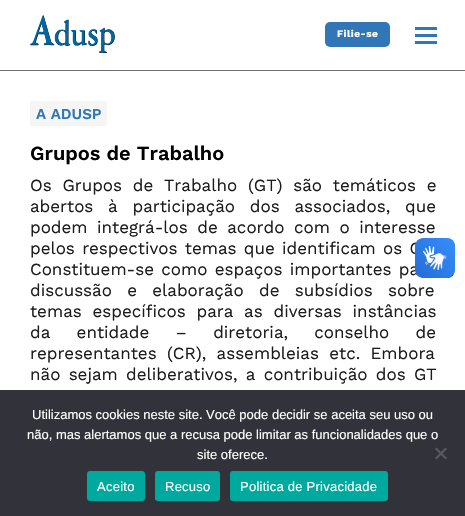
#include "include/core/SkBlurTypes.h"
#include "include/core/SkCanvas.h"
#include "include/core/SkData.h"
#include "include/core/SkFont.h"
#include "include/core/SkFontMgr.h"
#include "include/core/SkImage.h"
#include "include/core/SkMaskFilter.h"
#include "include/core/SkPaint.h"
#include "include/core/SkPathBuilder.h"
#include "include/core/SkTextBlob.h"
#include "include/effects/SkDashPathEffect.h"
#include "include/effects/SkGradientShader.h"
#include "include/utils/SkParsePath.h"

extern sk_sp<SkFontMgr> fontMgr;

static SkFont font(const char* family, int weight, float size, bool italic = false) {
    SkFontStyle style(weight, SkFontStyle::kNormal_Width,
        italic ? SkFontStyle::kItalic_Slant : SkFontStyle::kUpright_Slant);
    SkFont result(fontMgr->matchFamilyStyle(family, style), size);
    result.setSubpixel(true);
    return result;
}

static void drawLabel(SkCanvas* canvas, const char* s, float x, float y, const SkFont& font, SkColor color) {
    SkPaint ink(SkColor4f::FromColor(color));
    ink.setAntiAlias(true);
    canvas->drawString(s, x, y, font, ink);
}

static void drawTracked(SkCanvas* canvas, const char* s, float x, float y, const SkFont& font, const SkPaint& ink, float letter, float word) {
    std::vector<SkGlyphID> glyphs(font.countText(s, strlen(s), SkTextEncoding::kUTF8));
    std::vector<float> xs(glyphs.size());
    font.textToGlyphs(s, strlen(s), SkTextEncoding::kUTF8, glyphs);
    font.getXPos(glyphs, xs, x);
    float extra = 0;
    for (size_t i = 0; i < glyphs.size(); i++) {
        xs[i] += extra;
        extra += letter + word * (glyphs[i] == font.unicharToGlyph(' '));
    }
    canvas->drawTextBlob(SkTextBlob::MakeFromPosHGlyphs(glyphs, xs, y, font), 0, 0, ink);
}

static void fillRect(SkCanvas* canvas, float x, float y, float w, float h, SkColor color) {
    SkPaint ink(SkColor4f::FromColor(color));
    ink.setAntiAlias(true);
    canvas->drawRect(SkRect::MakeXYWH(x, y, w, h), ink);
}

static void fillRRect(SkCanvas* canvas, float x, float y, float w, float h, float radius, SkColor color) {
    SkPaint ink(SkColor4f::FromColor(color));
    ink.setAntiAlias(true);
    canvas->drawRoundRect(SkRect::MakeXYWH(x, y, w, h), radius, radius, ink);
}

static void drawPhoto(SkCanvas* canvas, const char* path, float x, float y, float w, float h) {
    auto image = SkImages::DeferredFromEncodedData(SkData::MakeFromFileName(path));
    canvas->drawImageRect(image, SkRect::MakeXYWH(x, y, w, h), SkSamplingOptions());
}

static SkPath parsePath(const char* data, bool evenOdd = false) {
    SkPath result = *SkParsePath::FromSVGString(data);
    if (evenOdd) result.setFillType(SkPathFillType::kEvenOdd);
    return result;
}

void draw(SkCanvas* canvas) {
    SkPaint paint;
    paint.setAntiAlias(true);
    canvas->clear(0xFFFFFFFF);
    fillRect(canvas, 0, 70, 465, 1, 0xFF6E6F71);
    drawPhoto(canvas, "assets/img1.png", 30, 15, 85, 38);
    fillRRect(canvas, 325, 22, 65, 25, 5, 0xFF3176B6);
    SkFont font1 = font("Work Sans", 700, 10);
    paint.setColor(0xFFFFFFFF);
    drawTracked(canvas, "Filie-se", 337, 37, font1, paint, 0.5f, 0);
    fillRect(canvas, 415, 34, 22, 3, 0xFF3176B6);
    fillRect(canvas, 415, 27, 22, 3, 0xFF3176B6);
    fillRect(canvas, 415, 41, 22, 3, 0xFF3176B6);
    fillRect(canvas, 30, 101, 77, 25, 0xFFF5F5F5);
    SkFont font2 = font("Work Sans", 600, 15);
    drawLabel(canvas, "A ADUSP", 36, 119, font2, 0xFF3176B6);
    SkFont font3 = font("Work Sans", 600, 20);
    drawLabel(canvas, "Grupos de Trabalho", 30, 160, font3, 0xFF020202);
    SkFont font4 = font("Work Sans", 400, 17);
    paint.setColor(0xFF1C1C1C);
    drawTracked(canvas, "Os Grupos de Trabalho (GT) são temáticos e", 30, 191, font4, paint, 0, 5);
    drawTracked(canvas, "abertos à participação dos associados, que", 30, 212, font4, paint, 0, 9);
    drawTracked(canvas, "podem integrá-los de acordo com o interesse", 30, 233, font4, paint, 0, 3.75f);
    drawTracked(canvas, "pelos respectivos temas que identificam os G", 30, 254, font4, paint, 0, 1.5f);
    drawTracked(canvas, "Constituem-se como espaços importantes pa", 30, 275, font4, paint, 0, 1.5f);
    drawTracked(canvas, "discussão e elaboração de subsídios sobre", 30, 296, font4, paint, 0, 9.5f);
    drawTracked(canvas, "temas específicos para as diversas instâncias", 30, 317, font4, paint, 0, 5);
    drawTracked(canvas, "da entidade – diretoria, conselho de", 30, 338, font4, paint, 0, 20.5f);
    drawTracked(canvas, "representantes (CR), assembleias etc. Embora", 30, 359, font4, paint, 0, 4.5f);
    drawTracked(canvas, "não sejam deliberativos, a contribuição dos GT", 30, 380, font4, paint, 0, 2.5f);
    drawPhoto(canvas, "assets/img2.png", 415, 238, 40, 40);
    drawPhoto(canvas, "assets/img3.png", 415, 238, 40, 40);
    fillRect(canvas, 0, 390, 465, 126, 0xFF32323A);
    SkFont font5 = font("Liberation Sans", 400, 13);
    drawLabel(canvas, "Utilizamos cookies neste site. Você pode decidir se aceita seu uso ou", 32, 419, font5, 0xFFFFFFFF);
    drawLabel(canvas, "não, mas alertamos que a recusa pode limitar as funcionalidades que o", 27, 439, font5, 0xFFFFFFFF);
    drawLabel(canvas, "site oferece.", 197, 459, font5, 0xFFFFFFFF);
    paint.setColor(0xFF59595D);
    canvas->drawPath(parsePath("M445.5 447.5L447 449L436.5 459.5L435 458Z"), paint);
    canvas->drawPath(parsePath("M435 449L436.5 447.5L447 458L445.5 459.5Z"), paint);
    fillRRect(canvas, 87, 471, 58, 30, 3, 0xFF00A99D);
    paint.setColor(0xFFFFFFFF);
    drawTracked(canvas, "Aceito", 97, 491, font5, paint, 0.25f, 0);
    fillRRect(canvas, 155, 471, 65, 30, 3, 0xFF00A99D);
    drawTracked(canvas, "Recuso", 165, 491, font5, paint, 0.25f, 0);
    fillRRect(canvas, 230, 471, 158, 30, 3, 0xFF00A99D);
    drawTracked(canvas, "Politica de Privacidade", 240, 491, font5, paint, 0.25f, 0);
}
